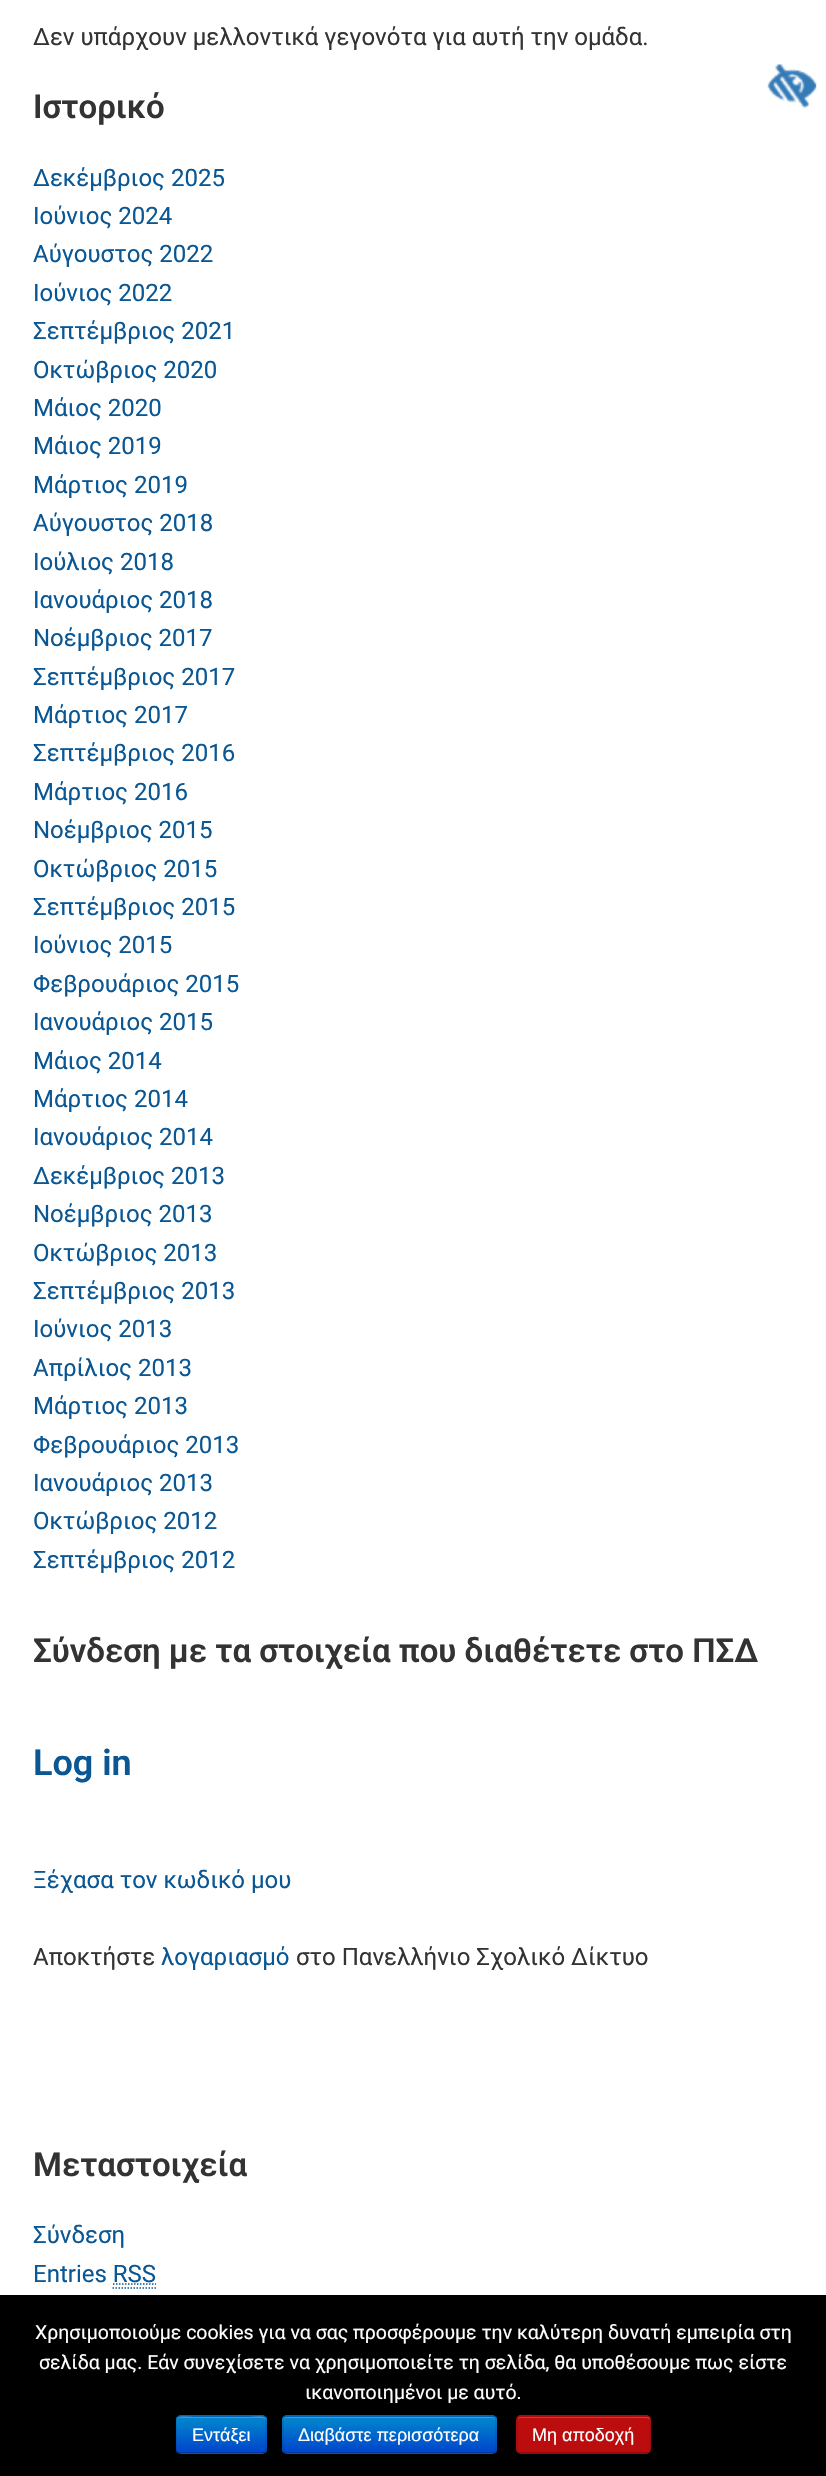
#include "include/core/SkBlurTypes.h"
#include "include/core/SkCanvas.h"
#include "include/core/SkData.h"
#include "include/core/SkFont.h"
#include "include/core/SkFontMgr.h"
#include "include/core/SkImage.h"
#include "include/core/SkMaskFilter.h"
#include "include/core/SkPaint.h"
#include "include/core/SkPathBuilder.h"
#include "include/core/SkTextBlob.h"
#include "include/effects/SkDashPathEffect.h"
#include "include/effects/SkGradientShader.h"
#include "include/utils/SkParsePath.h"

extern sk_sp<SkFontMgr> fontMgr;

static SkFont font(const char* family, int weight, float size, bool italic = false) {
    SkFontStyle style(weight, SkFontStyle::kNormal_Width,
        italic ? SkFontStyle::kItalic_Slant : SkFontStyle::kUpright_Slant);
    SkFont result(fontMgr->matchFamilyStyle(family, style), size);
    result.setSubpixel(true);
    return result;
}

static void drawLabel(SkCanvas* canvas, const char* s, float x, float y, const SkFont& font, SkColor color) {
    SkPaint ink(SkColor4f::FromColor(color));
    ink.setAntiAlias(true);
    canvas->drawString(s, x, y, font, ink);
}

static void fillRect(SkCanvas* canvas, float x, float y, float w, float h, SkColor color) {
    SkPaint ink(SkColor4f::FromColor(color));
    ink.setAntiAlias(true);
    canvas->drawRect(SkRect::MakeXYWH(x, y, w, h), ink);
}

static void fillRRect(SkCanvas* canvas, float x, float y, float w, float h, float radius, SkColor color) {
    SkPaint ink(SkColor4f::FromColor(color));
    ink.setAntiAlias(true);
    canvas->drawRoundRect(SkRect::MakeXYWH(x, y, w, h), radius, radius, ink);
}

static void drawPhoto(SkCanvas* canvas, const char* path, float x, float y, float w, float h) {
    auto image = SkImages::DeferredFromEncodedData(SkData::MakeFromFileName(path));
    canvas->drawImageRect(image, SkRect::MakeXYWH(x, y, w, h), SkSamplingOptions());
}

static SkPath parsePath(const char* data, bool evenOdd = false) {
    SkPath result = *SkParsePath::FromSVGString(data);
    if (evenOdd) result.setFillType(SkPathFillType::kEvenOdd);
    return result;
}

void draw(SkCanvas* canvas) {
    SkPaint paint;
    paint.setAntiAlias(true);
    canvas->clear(0xFFFFFFFF);
    SkFont font1 = font("Roboto", 400, 24);
    drawLabel(canvas, "Δεν υπάρχουν μελλοντικά γεγονότα για αυτή την ομάδα.", 33, 45, font1, 0xFF333333);
    SkFont font2 = font("Roboto", 600, 33);
    drawLabel(canvas, "Ιστορικό", 33, 118, font2, 0xFF333333);
    drawLabel(canvas, "Δεκέμβριος 2025", 33, 186, font1, 0xFF0A5794);
    drawLabel(canvas, "Ιούνιος 2024", 33, 224, font1, 0xFF0A5794);
    drawLabel(canvas, "Αύγουστος 2022", 33, 262, font1, 0xFF0A5794);
    drawLabel(canvas, "Ιούνιος 2022", 33, 301, font1, 0xFF0A5794);
    drawLabel(canvas, "Σεπτέμβριος 2021", 33, 339, font1, 0xFF0A5794);
    drawLabel(canvas, "Οκτώβριος 2020", 33, 378, font1, 0xFF0A5794);
    drawLabel(canvas, "Μάιος 2020", 33, 416, font1, 0xFF0A5794);
    drawLabel(canvas, "Μάιος 2019", 33, 454, font1, 0xFF0A5794);
    drawLabel(canvas, "Μάρτιος 2019", 33, 493, font1, 0xFF0A5794);
    drawLabel(canvas, "Αύγουστος 2018", 33, 531, font1, 0xFF0A5794);
    drawLabel(canvas, "Ιούλιος 2018", 33, 570, font1, 0xFF0A5794);
    drawLabel(canvas, "Ιανουάριος 2018", 33, 608, font1, 0xFF0A5794);
    drawLabel(canvas, "Νοέμβριος 2017", 33, 646, font1, 0xFF0A5794);
    drawLabel(canvas, "Σεπτέμβριος 2017", 33, 685, font1, 0xFF0A5794);
    drawLabel(canvas, "Μάρτιος 2017", 33, 723, font1, 0xFF0A5794);
    drawLabel(canvas, "Σεπτέμβριος 2016", 33, 761, font1, 0xFF0A5794);
    drawLabel(canvas, "Μάρτιος 2016", 33, 800, font1, 0xFF0A5794);
    drawLabel(canvas, "Νοέμβριος 2015", 33, 838, font1, 0xFF0A5794);
    drawLabel(canvas, "Οκτώβριος 2015", 33, 877, font1, 0xFF0A5794);
    drawLabel(canvas, "Σεπτέμβριος 2015", 33, 915, font1, 0xFF0A5794);
    drawLabel(canvas, "Ιούνιος 2015", 33, 953, font1, 0xFF0A5794);
    drawLabel(canvas, "Φεβρουάριος 2015", 33, 992, font1, 0xFF0A5794);
    drawLabel(canvas, "Ιανουάριος 2015", 33, 1030, font1, 0xFF0A5794);
    drawLabel(canvas, "Μάιος 2014", 33, 1069, font1, 0xFF0A5794);
    drawLabel(canvas, "Μάρτιος 2014", 33, 1107, font1, 0xFF0A5794);
    drawLabel(canvas, "Ιανουάριος 2014", 33, 1145, font1, 0xFF0A5794);
    drawLabel(canvas, "Δεκέμβριος 2013", 33, 1184, font1, 0xFF0A5794);
    drawLabel(canvas, "Νοέμβριος 2013", 33, 1222, font1, 0xFF0A5794);
    drawLabel(canvas, "Οκτώβριος 2013", 33, 1261, font1, 0xFF0A5794);
    drawLabel(canvas, "Σεπτέμβριος 2013", 33, 1299, font1, 0xFF0A5794);
    drawLabel(canvas, "Ιούνιος 2013", 33, 1337, font1, 0xFF0A5794);
    drawLabel(canvas, "Απρίλιος 2013", 33, 1376, font1, 0xFF0A5794);
    drawLabel(canvas, "Μάρτιος 2013", 33, 1414, font1, 0xFF0A5794);
    drawLabel(canvas, "Φεβρουάριος 2013", 33, 1453, font1, 0xFF0A5794);
    drawLabel(canvas, "Ιανουάριος 2013", 33, 1491, font1, 0xFF0A5794);
    drawLabel(canvas, "Οκτώβριος 2012", 33, 1529, font1, 0xFF0A5794);
    drawLabel(canvas, "Σεπτέμβριος 2012", 33, 1568, font1, 0xFF0A5794);
    drawLabel(canvas, "Σύνδεση με τα στοιχεία που διαθέτετε στο ΠΣΔ", 33, 1662, font2, 0xFF333333);
    SkFont font3 = font("Roboto", 600, 36);
    drawLabel(canvas, "Log in", 33, 1775, font3, 0xFF0A5794);
    drawLabel(canvas, "Ξέχασα τον κωδικό μου", 33, 1888, font1, 0xFF0A5794);
    drawLabel(canvas, "Αποκτήστε", 33, 1965, font1, 0xFF333333);
    drawLabel(canvas, "λογαριασμό", 161, 1965, font1, 0xFF0A5794);
    drawLabel(canvas, "στο Πανελλήνιο Σχολικό Δίκτυο", 296, 1965, font1, 0xFF333333);
    drawLabel(canvas, "Μεταστοιχεία", 33, 2176, font2, 0xFF333333);
    drawLabel(canvas, "Σύνδεση", 33, 2243, font1, 0xFF0A5794);
    drawLabel(canvas, "Entries RSS", 33, 2282, font1, 0xFF0A5794);
    paint.setStroke(true);
    paint.setStrokeWidth(1.5f);
    paint.setColor(0xFF0A5794);
    paint.setPathEffect(SkDashPathEffect::Make({{1.5f, 1.5f}}, 0));
    canvas->drawPath(parsePath("M112.5 2288H156M113 2284H156"), paint);
    paint.setPathEffect(nullptr);
    drawPhoto(canvas, "assets/img1.png", 767, 64, 50, 45);
    fillRect(canvas, 0, 2295, 826, 181, 0xFF000000);
    SkFont font4 = font("Roboto", 400, 19.5f);
    drawLabel(canvas, "Χρησιμοποιούμε cookies για να σας προσφέρουμε την καλύτερη δυνατή εμπειρία στη", 35, 2339, font4, 0xFFFFFFFF);
    drawLabel(canvas, "σελίδα μας. Εάν συνεχίσετε να χρησιμοποιείτε τη σελίδα, θα υποθέσουμε πως είστε", 39, 2369, font4, 0xFFFFFFFF);
    drawLabel(canvas, "ικανοποιημένοι με αυτό.", 305, 2399, font4, 0xFFFFFFFF);
    fillRRect(canvas, 176, 2415, 91, 39, 5, 0xFF006DCC);
    canvas->save();
    canvas->clipPath(parsePath("M181 2415H262C265 2415 267 2417 267 2420V2449C267 2452 265 2454 262 2454H181C178 2454 176 2452 176 2449V2420C176 2417 178 2415 181 2415Z"), true);
    paint.setStroke(false);
    {
        const SkColor colors[] = {0xFF0088CC, 0xFF0044CC};
        const float stops[] = {0, 1};
        const SkPoint ends[] = {{221, 2417}, {221, 2453}};
        paint.setShader(SkGradientShader::MakeLinear(ends, colors, stops, 2, SkTileMode::kClamp));
        paint.setAlpha(255);
    }
    canvas->drawRect(SkRect::MakeXYWH(176, 2417, 91, 36), paint);
    canvas->restore();
    paint.setShader(nullptr);
    paint.setColor(0x33FFFFFF);
    canvas->drawPath(parsePath("M180 2418H262C264 2418 266 2419 266 2421C266 2413 253 2417 249 2417H194C190 2417 177 2413 177 2421C177 2419 178 2418 180 2418Z"), paint);
    paint.setStroke(true);
    paint.setColor(0x40000000);
    canvas->drawPath(parsePath("M265 2452L263 2453H179.5L177.5 2452"), paint);
    paint.setColor(0x1A000000);
    canvas->drawPath(parsePath("M177.5 2452C175.5 2450.5 176 2446.5 176 2444.5V2434.5C176 2413 172.5 2416 194 2416H249C270 2416 266 2413 266 2434.5V2444.5C266 2446.5 267 2450.5 265 2452"), paint);
    SkFont font5 = font("Liberation Sans", 400, 18);
    drawLabel(canvas, "Εντάξει", 192, 2441, font5, 0xFFFFFFFF);
    fillRRect(canvas, 282, 2415, 215, 39, 5, 0xFF006DCC);
    canvas->save();
    canvas->clipPath(parsePath("M287 2415H492C495 2415 497 2417 497 2420V2449C497 2452 495 2454 492 2454H287C284 2454 282 2452 282 2449V2420C282 2417 284 2415 287 2415Z"), true);
    paint.setStroke(false);
    {
        const SkColor colors[] = {0xFF0088CC, 0xFF0044CC};
        const float stops[] = {0, 1};
        const SkPoint ends[] = {{389, 2417}, {389, 2453}};
        paint.setShader(SkGradientShader::MakeLinear(ends, colors, stops, 2, SkTileMode::kClamp));
        paint.setAlpha(255);
    }
    canvas->drawRect(SkRect::MakeXYWH(282, 2417, 215, 36), paint);
    canvas->restore();
    paint.setShader(nullptr);
    paint.setColor(0xFF339FD6);
    canvas->drawPath(parsePath("M286 2418H492C494 2418 495 2419 495 2421V2420C495 2418 494 2417 492 2417H287C285 2417 284 2418 284 2420V2421C284 2419 285 2418 286 2418Z"), paint);
    paint.setStroke(true);
    paint.setColor(0x40000000);
    canvas->drawPath(parsePath("M494.5 2452C494 2453 493 2453 492 2453H286.5C285.5 2453 284.5 2453 284 2452"), paint);
    paint.setColor(0x1A000000);
    canvas->drawPath(parsePath("M284 2452C283 2451.5 283 2450.5 283 2449.5V2419.5C283 2418.5 283 2417.5 284 2417C284.5 2416 285.5 2416 286.5 2416H492C493 2416 494 2416 494.5 2417C495.5 2417.5 496 2418.5 496 2419.5V2449.5C496 2450.5 495.5 2451.5 494.5 2452"), paint);
    drawLabel(canvas, "Διαβάστε περισσότερα", 298, 2441, font5, 0xFFFFFFFF);
    fillRRect(canvas, 516, 2415, 135, 39, 5, 0xFFBB0D0D);
    paint.setStroke(false);
    paint.setColor(0xFFC93D3D);
    canvas->drawPath(parsePath("M520 2418H646C648 2418 650 2419 650 2421C650 2419 650 2417 648 2417H520C518 2417 518 2419 518 2421C518 2419 519 2418 520 2418Z"), paint);
    paint.setStroke(true);
    paint.setColor(0x40000000);
    canvas->drawPath(parsePath("M649 2452C648.5 2453 647.5 2453 646.5 2453H520.5C519.5 2453 518.5 2453 518 2452"), paint);
    paint.setColor(0x1A000000);
    canvas->drawPath(parsePath("M518 2452C515.5 2449.5 517 2442 517 2439.5C517 2411 511.5 2416 541.5 2416H625.5C655.5 2416 650 2411 650 2439.5C650 2442 651.5 2449.5 649 2452"), paint);
    drawLabel(canvas, "Μη αποδοχή", 532, 2441, font5, 0xFFFFFFFF);
}
